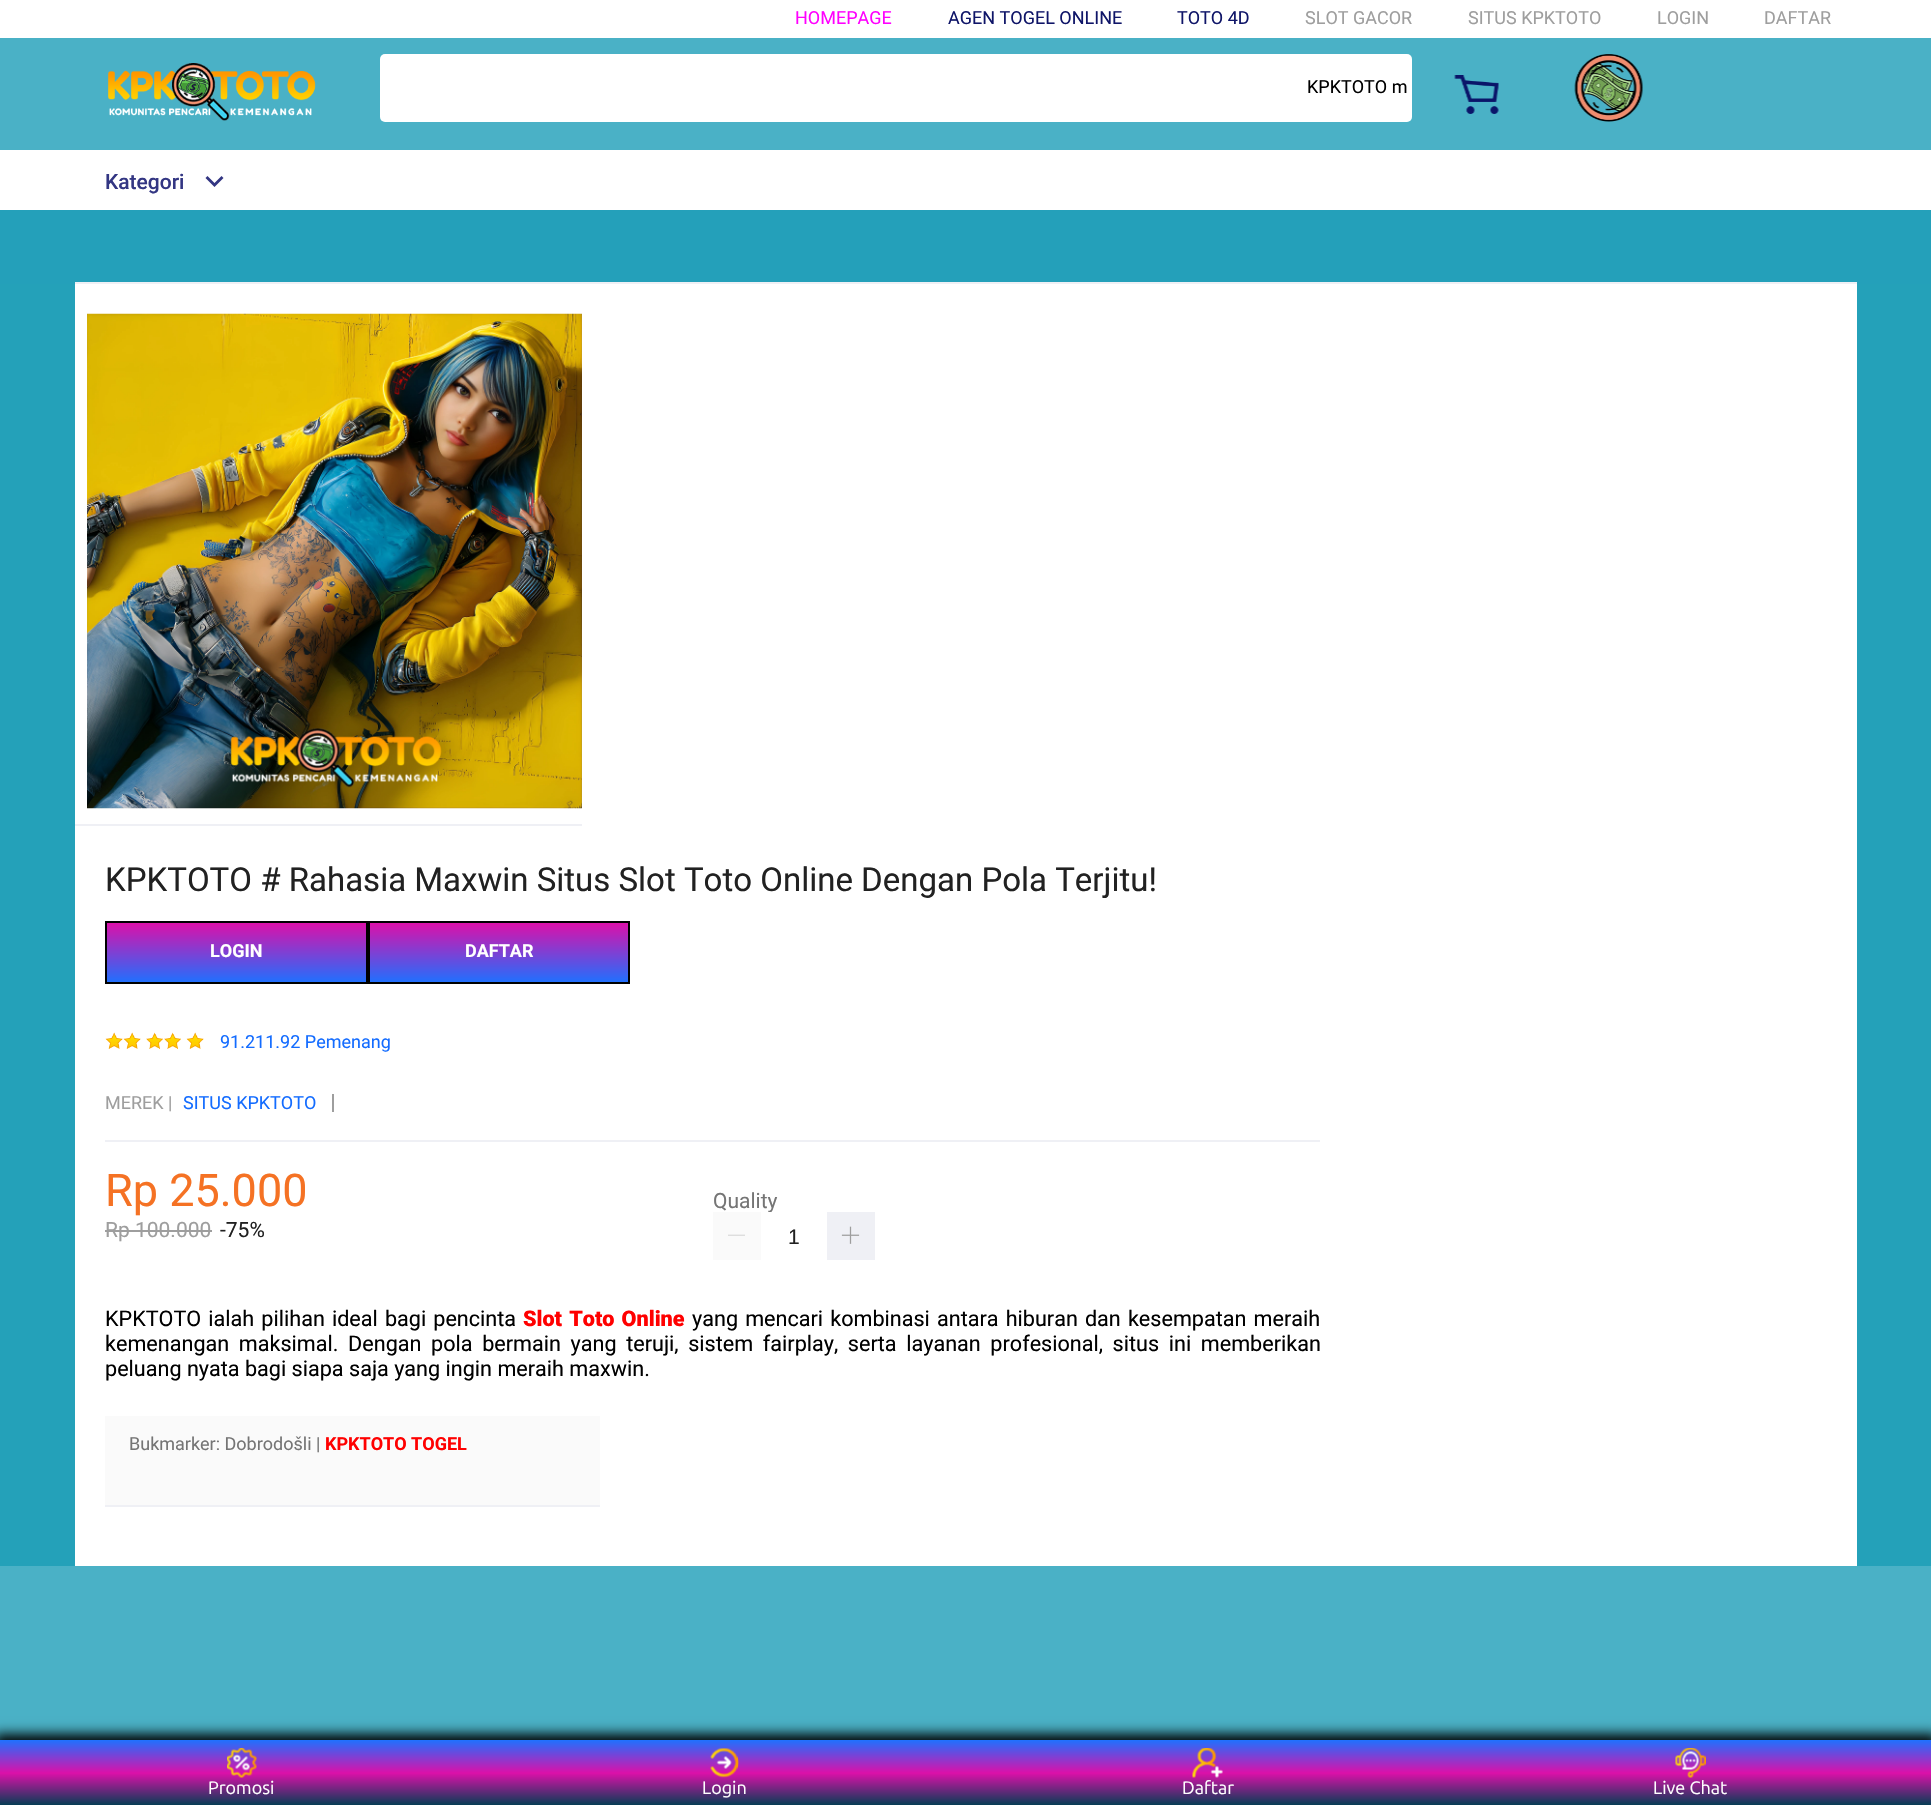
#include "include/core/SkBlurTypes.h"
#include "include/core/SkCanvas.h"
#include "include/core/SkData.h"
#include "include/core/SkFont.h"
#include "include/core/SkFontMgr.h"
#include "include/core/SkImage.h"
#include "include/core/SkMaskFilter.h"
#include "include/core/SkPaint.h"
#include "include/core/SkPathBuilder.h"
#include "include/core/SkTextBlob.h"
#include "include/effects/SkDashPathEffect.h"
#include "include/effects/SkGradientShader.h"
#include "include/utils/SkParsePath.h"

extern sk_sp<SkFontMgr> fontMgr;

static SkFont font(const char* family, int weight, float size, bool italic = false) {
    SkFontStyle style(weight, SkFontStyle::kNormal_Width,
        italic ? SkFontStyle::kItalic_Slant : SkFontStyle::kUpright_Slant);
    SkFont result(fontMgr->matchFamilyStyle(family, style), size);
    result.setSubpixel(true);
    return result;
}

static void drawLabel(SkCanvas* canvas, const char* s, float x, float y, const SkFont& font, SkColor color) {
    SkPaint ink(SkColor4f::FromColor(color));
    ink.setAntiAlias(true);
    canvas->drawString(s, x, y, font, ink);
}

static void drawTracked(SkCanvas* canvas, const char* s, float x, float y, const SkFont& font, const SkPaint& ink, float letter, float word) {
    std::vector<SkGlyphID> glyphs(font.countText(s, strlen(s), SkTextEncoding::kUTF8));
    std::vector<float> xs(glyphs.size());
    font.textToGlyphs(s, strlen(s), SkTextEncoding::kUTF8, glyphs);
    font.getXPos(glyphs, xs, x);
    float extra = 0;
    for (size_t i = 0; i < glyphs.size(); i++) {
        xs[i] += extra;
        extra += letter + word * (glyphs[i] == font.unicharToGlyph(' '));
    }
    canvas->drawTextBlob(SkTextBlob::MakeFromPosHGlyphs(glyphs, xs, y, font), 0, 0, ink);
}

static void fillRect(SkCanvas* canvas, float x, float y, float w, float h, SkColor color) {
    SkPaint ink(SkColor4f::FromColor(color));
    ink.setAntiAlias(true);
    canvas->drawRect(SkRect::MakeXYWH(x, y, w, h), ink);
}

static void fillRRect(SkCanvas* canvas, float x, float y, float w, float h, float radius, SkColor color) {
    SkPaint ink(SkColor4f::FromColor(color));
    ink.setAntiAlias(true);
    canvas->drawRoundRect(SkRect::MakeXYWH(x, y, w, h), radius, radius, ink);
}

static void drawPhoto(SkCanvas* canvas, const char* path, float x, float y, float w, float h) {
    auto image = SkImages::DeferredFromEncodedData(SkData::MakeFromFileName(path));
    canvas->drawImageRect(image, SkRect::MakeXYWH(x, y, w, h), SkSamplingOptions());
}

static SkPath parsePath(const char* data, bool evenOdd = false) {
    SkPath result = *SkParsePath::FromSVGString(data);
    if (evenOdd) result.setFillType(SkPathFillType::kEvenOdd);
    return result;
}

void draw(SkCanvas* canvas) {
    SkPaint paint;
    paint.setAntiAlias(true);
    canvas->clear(0xFF4AB1C6);
    fillRect(canvas, 0, 0, 1931, 210, 0xFFFFFFFF);
    SkFont font1 = font("Roboto", 400, 18);
    drawLabel(canvas, "HOMEPAGE", 795, 24, font1, 0xFFFF00FF);
    drawLabel(canvas, "AGEN TOGEL ONLINE", 948, 24, font1, 0xFF0F1568);
    drawLabel(canvas, "TOTO 4D", 1177, 24, font1, 0xFF0F1568);
    drawLabel(canvas, "SLOT GACOR", 1305, 24, font1, 0xFF9E9E9E);
    drawLabel(canvas, "SITUS KPKTOTO", 1468, 24, font1, 0xFF9E9E9E);
    drawLabel(canvas, "LOGIN", 1657, 24, font1, 0xFF9E9E9E);
    drawLabel(canvas, "DAFTAR", 1764, 24, font1, 0xFF9E9E9E);
    fillRect(canvas, 0, 38, 1931, 112, 0xFF4AB1C6);
    drawPhoto(canvas, "assets/img1.png", 108, 63, 208, 58);
    fillRRect(canvas, 380, 54, 1032, 68, 5, 0xFFFFFFFF);
    drawLabel(canvas, "KPKTOTO m", 1307, 93, font1, 0xFF000000);
    drawPhoto(canvas, "assets/img2.png", 1454, 75, 45, 39);
    drawPhoto(canvas, "assets/img3.png", 1574, 54, 69, 68);
    SkFont font2 = font("Roboto", 500, 21);
    drawLabel(canvas, "Kategori", 105, 189, font2, 0xFF333683);
    paint.setColor(0xFF333683);
    canvas->drawPath(parsePath("M221.5 176L223.5 178L214.5 187L205.5 178L207.5 176L214.5 183Z"), paint);
    fillRect(canvas, 0, 210, 1931, 74, 0xFF24A0BA);
    fillRect(canvas, 75, 282, 1782, 2, 0xFFEFF0F5);
    fillRect(canvas, 0, 284, 1931, 1282, 0xFF24A1B9);
    fillRect(canvas, 75, 284, 1782, 1282, 0xFFFFFFFF);
    fillRect(canvas, 75, 824, 507, 2, 0xFFEFF0F5);
    drawPhoto(canvas, "assets/img4.png", 87, 313, 495, 496);
    SkFont font3 = font("Roboto", 400, 33);
    drawLabel(canvas, "KPKTOTO # Rahasia Maxwin Situs Slot Toto Online Dengan Pola Terjitu!", 105, 891, font3, 0xFF212121);
    {
        const SkColor colors[] = {0xFFDC10A9, 0xFF1E71FF};
        const float stops[] = {0, 1};
        const SkPoint ends[] = {{236, 923}, {236, 983}};
        paint.setShader(SkGradientShader::MakeLinear(ends, colors, stops, 2, SkTileMode::kClamp));
        paint.setAlpha(255);
    }
    canvas->drawRect(SkRect::MakeXYWH(107, 923, 259, 59), paint);
    paint.setStroke(true);
    paint.setStrokeWidth(2);
    paint.setShader(nullptr);
    paint.setColor(0xFF000000);
    canvas->drawRect(SkRect::MakeXYWH(106, 922, 261, 61), paint);
    SkFont font4 = font("Roboto", 700, 18);
    drawLabel(canvas, "LOGIN", 210, 957, font4, 0xFFFFFFFF);
    paint.setStroke(false);
    {
        const SkColor colors[] = {0xFFDC10A9, 0xFF1E71FF};
        const float stops[] = {0, 1};
        const SkPoint ends[] = {{499, 923}, {499, 983}};
        paint.setShader(SkGradientShader::MakeLinear(ends, colors, stops, 2, SkTileMode::kClamp));
        paint.setAlpha(255);
    }
    canvas->drawRect(SkRect::MakeXYWH(370, 923, 258, 59), paint);
    paint.setStroke(true);
    paint.setShader(nullptr);
    paint.setColor(0xFF000000);
    canvas->drawRect(SkRect::MakeXYWH(369, 922, 260, 61), paint);
    drawLabel(canvas, "DAFTAR", 465, 957, font4, 0xFFFFFFFF);
    drawPhoto(canvas, "assets/img5.png", 105, 1032, 18, 17);
    drawPhoto(canvas, "assets/img5.png", 123, 1032, 18, 17);
    drawPhoto(canvas, "assets/img6.png", 146, 1032, 17, 17);
    drawPhoto(canvas, "assets/img6.png", 164, 1032, 17, 17);
    drawPhoto(canvas, "assets/img5.png", 186, 1032, 18, 17);
    drawLabel(canvas, "91.211.92 Pemenang", 220, 1048, font1, 0xFF136CFF);
    fillRect(canvas, 105, 1140, 1215, 2, 0xFFEFF0F5);
    drawLabel(canvas, "MEREK |", 105, 1109, font1, 0xFF9E9E9E);
    drawLabel(canvas, "SITUS KPKTOTO", 183, 1109, font1, 0xFF136CFF);
    fillRect(canvas, 332, 1094, 2, 18, 0xFF9E9E9E);
    SkFont font5 = font("Roboto", 400, 45);
    drawLabel(canvas, "Rp 25.000", 105, 1206, font5, 0xFFF57224);
    SkFont font6 = font("Roboto", 400, 21);
    drawLabel(canvas, "Rp 100.000", 105, 1237, font6, 0xFF9E9E9E);
    fillRect(canvas, 105, 1230, 107, 2, 0xFF9E9E9E);
    drawLabel(canvas, "-75%", 220, 1237, font6, 0xFF212121);
    drawLabel(canvas, "Quality", 713, 1208, font6, 0xFF757575);
    fillRect(canvas, 713, 1212, 48, 48, 0xFFFAFAFA);
    drawPhoto(canvas, "assets/img7.png", 728, 1234, 17, 2);
    fillRect(canvas, 827, 1212, 48, 48, 0xFFEFF0F5);
    drawPhoto(canvas, "assets/img8.png", 841, 1226, 19, 18);
    fillRect(canvas, 767, 1212, 4, 1, 0xFFFFFFFF);
    SkFont font7 = font("Liberation Sans", 400, 21);
    drawLabel(canvas, "1", 788, 1244, font7, 0xFF212121);
    SkFont font8 = font("Roboto", 400, 21.6f);
    paint.setStroke(false);
    drawTracked(canvas, "KPKTOTO ialah pilihan ideal bagi pencinta", 105, 1326, font8, paint, 0, 1.75f);
    SkFont font9 = font("Roboto", 900, 21.6f);
    paint.setColor(0xFFFF0000);
    drawTracked(canvas, "Slot Toto Online", 523, 1326, font9, paint, 0, 1.75f);
    paint.setColor(0xFF000000);
    drawTracked(canvas, "yang mencari kombinasi antara hiburan dan kesempatan meraih", 692, 1326, font8, paint, 0, 1.75f);
    drawTracked(canvas, "kemenangan maksimal. Dengan pola bermain yang teruji, sistem fairplay, serta layanan profesional, situs ini memberikan", 105, 1351, font8, paint, 0, 4.25f);
    drawLabel(canvas, "peluang nyata bagi siapa saja yang ingin meraih maxwin.", 105, 1376, font8, 0xFF000000);
    fillRect(canvas, 105, 1416, 495, 89, 0xFFFAFAFA);
    drawLabel(canvas, "Bukmarker: Dobrodošli |", 129, 1450, font1, 0xFF757575);
    drawLabel(canvas, "KPKTOTO TOGEL", 325, 1450, font4, 0xFFFF0000);
    fillRect(canvas, 105, 1505, 495, 2, 0xFFEFF0F5);
    paint.setMaskFilter(SkMaskFilter::MakeBlur(kNormal_SkBlurStyle, 6));
    canvas->drawRect(SkRect::MakeXYWH(-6, 1734, 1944, 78), paint);
    paint.setMaskFilter(nullptr);
    {
        const SkColor colors[] = {0xFF1E71FF, 0xFFDC10A9, 0xFF003E52};
        const float stops[] = {0, 0.5f, 1};
        const SkPoint ends[] = {{966, 1740}, {966, 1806}};
        paint.setShader(SkGradientShader::MakeLinear(ends, colors, stops, 3, SkTileMode::kClamp));
        paint.setAlpha(255);
    }
    canvas->drawRect(SkRect::MakeXYWH(0, 1740, 1931, 65), paint);
    drawPhoto(canvas, "assets/img9.png", 227, 1748, 30, 30);
    SkFont font10 = font("Ubuntu", 400, 18);
    drawLabel(canvas, "Promosi", 208, 1794, font10, 0xFFFFFFFF);
    drawPhoto(canvas, "assets/img10.png", 710, 1748, 29, 30);
    drawLabel(canvas, "Login", 702, 1794, font10, 0xFFFFFFFF);
    drawPhoto(canvas, "assets/img11.png", 1192, 1748, 31, 30);
    drawLabel(canvas, "Daftar", 1182, 1794, font10, 0xFFFFFFFF);
    drawPhoto(canvas, "assets/img12.png", 1675, 1748, 31, 30);
    drawLabel(canvas, "Live Chat", 1653, 1794, font10, 0xFFFFFFFF);
}
